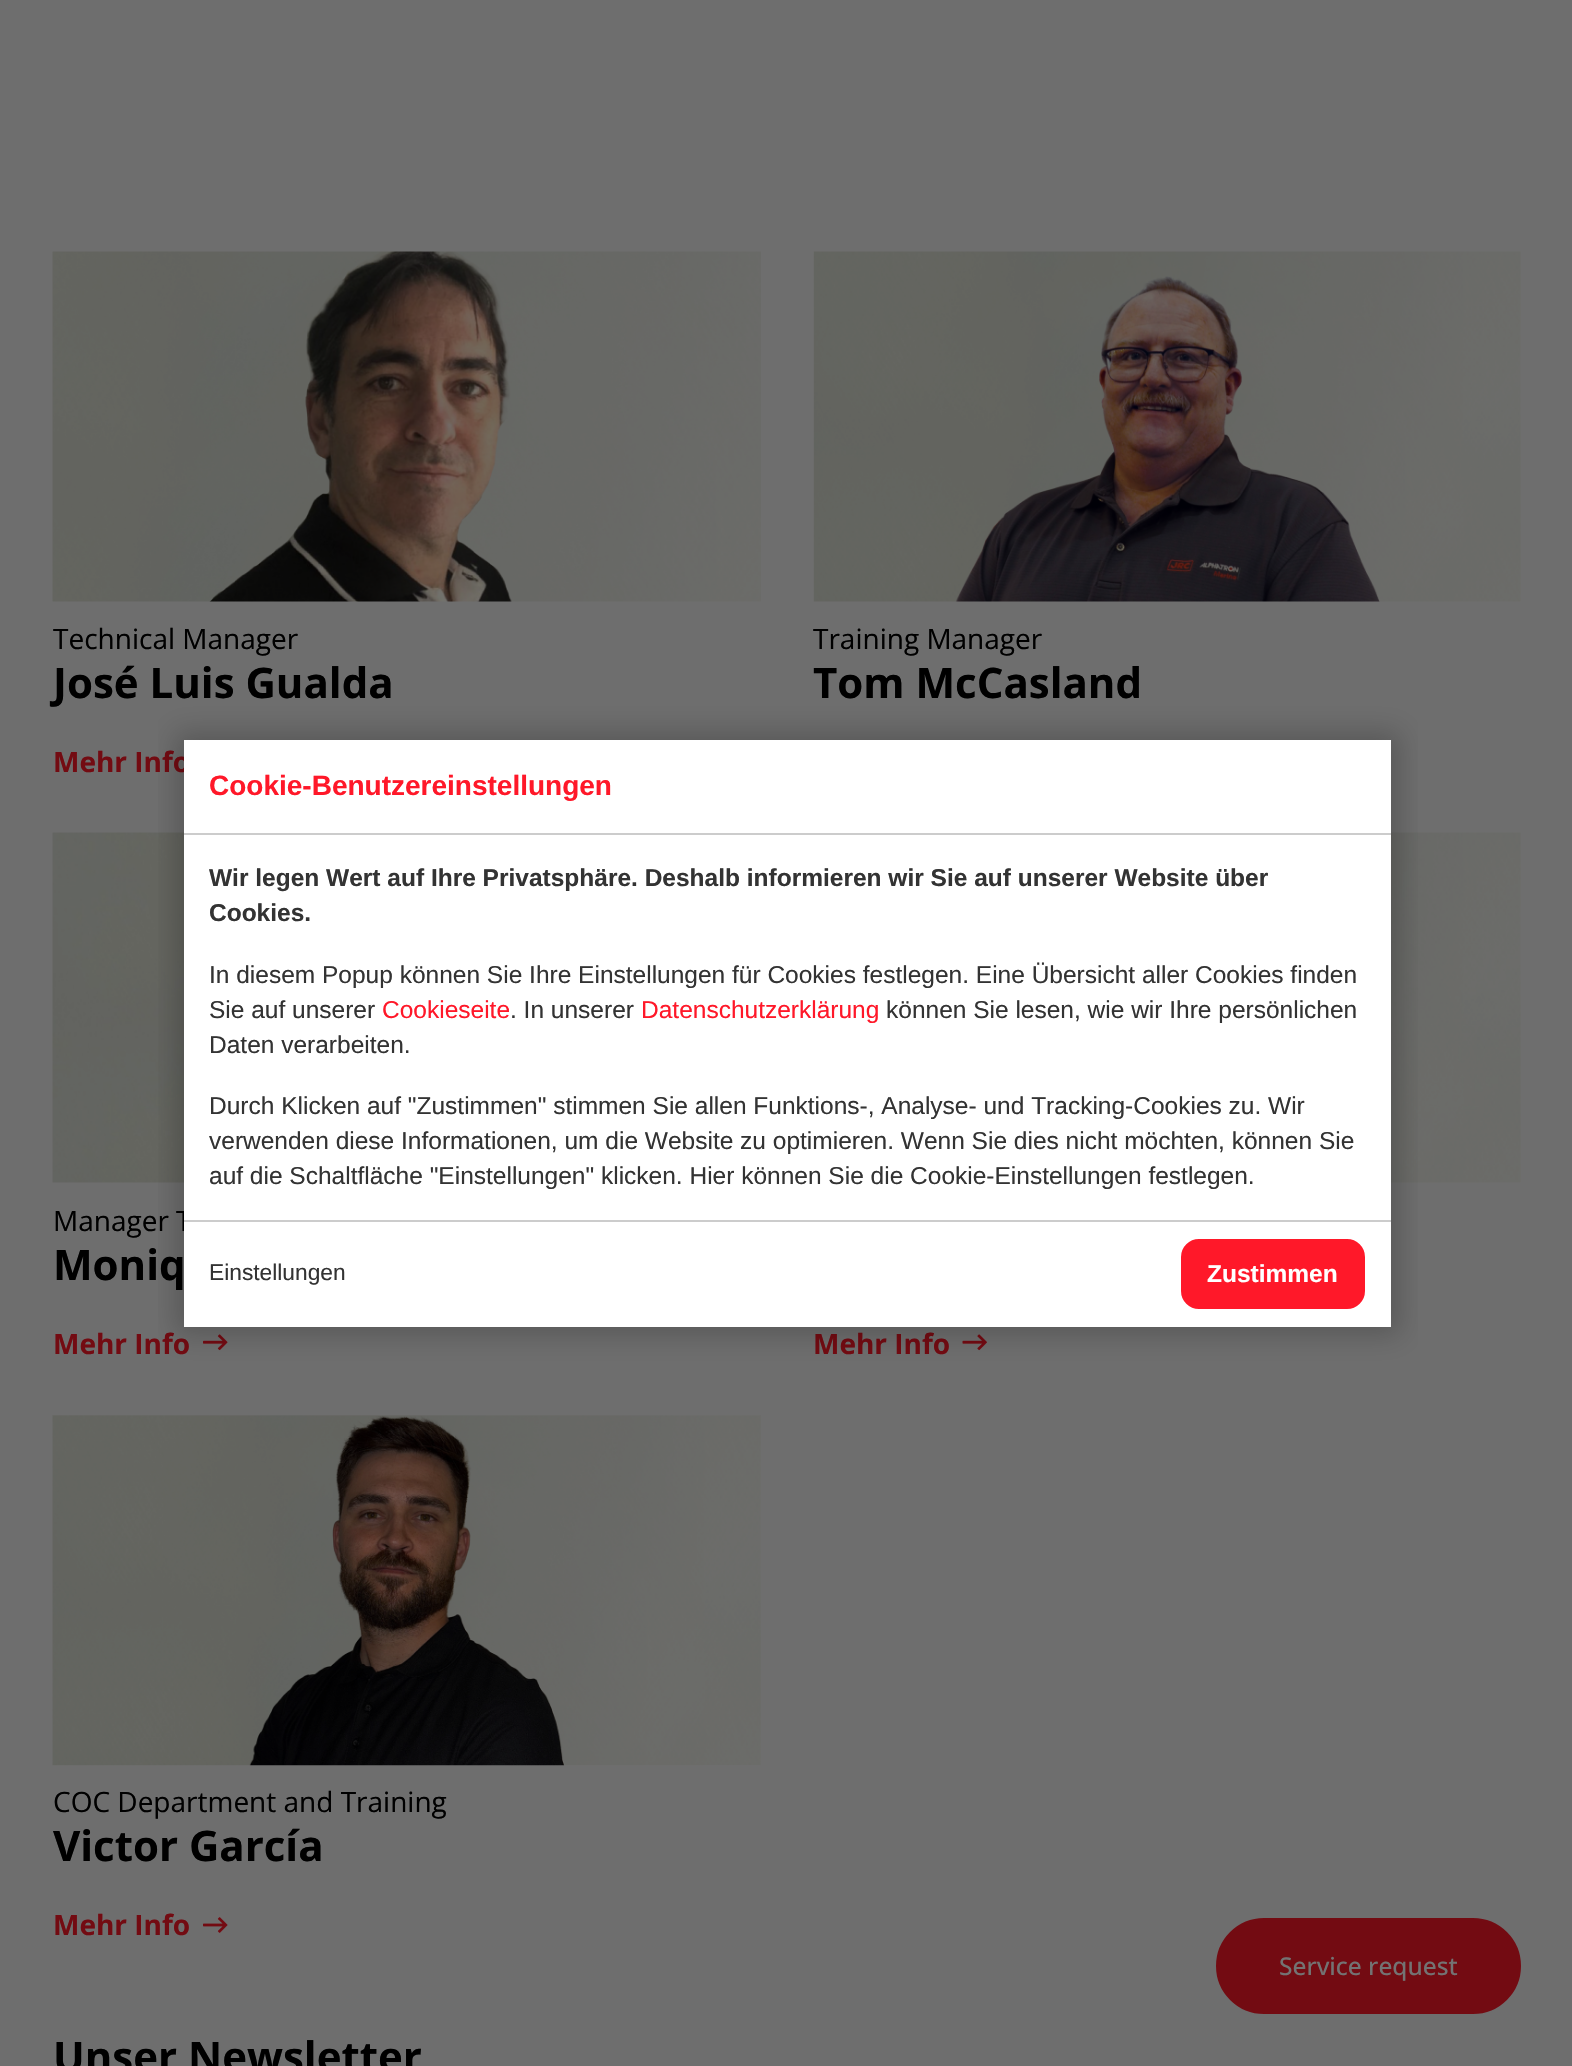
#include "include/core/SkBlurTypes.h"
#include "include/core/SkCanvas.h"
#include "include/core/SkData.h"
#include "include/core/SkFont.h"
#include "include/core/SkFontMgr.h"
#include "include/core/SkImage.h"
#include "include/core/SkMaskFilter.h"
#include "include/core/SkPaint.h"
#include "include/core/SkPathBuilder.h"
#include "include/core/SkTextBlob.h"
#include "include/effects/SkDashPathEffect.h"
#include "include/effects/SkGradientShader.h"
#include "include/utils/SkParsePath.h"

extern sk_sp<SkFontMgr> fontMgr;

static SkFont font(const char* family, int weight, float size, bool italic = false) {
    SkFontStyle style(weight, SkFontStyle::kNormal_Width,
        italic ? SkFontStyle::kItalic_Slant : SkFontStyle::kUpright_Slant);
    SkFont result(fontMgr->matchFamilyStyle(family, style), size);
    result.setSubpixel(true);
    return result;
}

static void drawLabel(SkCanvas* canvas, const char* s, float x, float y, const SkFont& font, SkColor color) {
    SkPaint ink(SkColor4f::FromColor(color));
    ink.setAntiAlias(true);
    canvas->drawString(s, x, y, font, ink);
}

static void fillRect(SkCanvas* canvas, float x, float y, float w, float h, SkColor color) {
    SkPaint ink(SkColor4f::FromColor(color));
    ink.setAntiAlias(true);
    canvas->drawRect(SkRect::MakeXYWH(x, y, w, h), ink);
}

static void drawPhoto(SkCanvas* canvas, const char* path, float x, float y, float w, float h) {
    auto image = SkImages::DeferredFromEncodedData(SkData::MakeFromFileName(path));
    canvas->drawImageRect(image, SkRect::MakeXYWH(x, y, w, h), SkSamplingOptions());
}

void draw(SkCanvas* canvas) {
    SkPaint paint;
    paint.setAntiAlias(true);
    canvas->clear(0xFF6E6E6E);
    drawPhoto(canvas, "assets/img1.png", 52, 251, 709, 351);
    SkFont font1 = font("Open Sans", 400, 28);
    drawLabel(canvas, "Technical Manager", 53, 649, font1, 0xFF000000);
    SkFont font2 = font("Open Sans", 700, 42);
    drawLabel(canvas, "José Luis Gualda", 53, 698, font2, 0xFF000000);
    SkFont font3 = font("Open Sans", 700, 28);
    drawLabel(canvas, "Mehr Info", 53, 772, font3, 0xFF730B12);
    drawPhoto(canvas, "assets/img2.png", 813, 251, 708, 351);
    drawLabel(canvas, "Training Manager", 813, 649, font1, 0xFF000000);
    drawLabel(canvas, "Tom McCasland", 813, 698, font2, 0xFF000000);
    drawPhoto(canvas, "assets/img3.png", 52, 832, 132, 351);
    drawLabel(canvas, "Manager T", 53, 1231, font1, 0xFF000000);
    drawLabel(canvas, "Moniq", 53, 1280, font2, 0xFF000000);
    drawLabel(canvas, "Mehr Info", 53, 1354, font3, 0xFF730B12);
    drawPhoto(canvas, "assets/img4.png", 203, 1334, 25, 17);
    drawPhoto(canvas, "assets/img5.png", 1391, 832, 130, 351);
    drawLabel(canvas, "Mehr Info", 813, 1354, font3, 0xFF730B12);
    drawPhoto(canvas, "assets/img6.png", 962, 1334, 25, 17);
    drawPhoto(canvas, "assets/img7.png", 52, 1415, 709, 351);
    drawLabel(canvas, "COC Department and Training", 53, 1812, font1, 0xFF000000);
    drawLabel(canvas, "Victor García", 53, 1861, font2, 0xFF000000);
    drawLabel(canvas, "Mehr Info", 53, 1935, font3, 0xFF730B12);
    drawPhoto(canvas, "assets/img8.png", 203, 1917, 25, 16);
    paint.setColor(0xFF730B12);
    canvas->drawRoundRect(SkRect::MakeXYWH(1217, 1919, 303, 94), 47, 47, paint);
    paint.setStroke(true);
    paint.setStrokeWidth(2);
    canvas->drawRoundRect(SkRect::MakeXYWH(1217, 1919, 303, 94), 47, 47, paint);
    SkFont font4 = font("Open Sans", 500, 24.5f);
    drawLabel(canvas, "Service request", 1279, 1975, font4, 0xFF737373);
    drawLabel(canvas, "Unser Newsletter", 53, 2072, font2, 0xFF000000);
    canvas->save();
    canvas->clipRect(SkRect::MakeXYWH(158, 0, 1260, 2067));
    paint.setStroke(false);
    paint.setColor(0x33000000);
    paint.setMaskFilter(SkMaskFilter::MakeBlur(kNormal_SkBlurStyle, 13));
    canvas->drawRect(SkRect::MakeXYWH(175, 732, 1225, 603), paint);
    paint.setMaskFilter(nullptr);
    canvas->restore();
    fillRect(canvas, 184, 740, 1207, 587, 0xFFFFFFFF);
    fillRect(canvas, 184, 833, 1207, 2, 0xFFCCCCCC);
    SkFont font5 = font("Liberation Sans", 700, 28);
    drawLabel(canvas, "Cookie-Benutzereinstellungen", 209, 795, font5, 0xFFFF1829);
    SkFont font6 = font("Liberation Sans", 700, 24.5f);
    drawLabel(canvas, "Wir legen Wert auf Ihre Privatsphäre. Deshalb informieren wir Sie auf unserer Website über", 209, 886, font6, 0xFF333333);
    drawLabel(canvas, "Cookies.", 209, 921, font6, 0xFF333333);
    SkFont font7 = font("Liberation Sans", 400, 24.5f);
    drawLabel(canvas, "In diesem Popup können Sie Ihre Einstellungen für Cookies festlegen. Eine Übersicht aller Cookies finden", 209, 983, font7, 0xFF333333);
    drawLabel(canvas, "Sie auf unserer", 209, 1018, font7, 0xFF333333);
    drawLabel(canvas, "Cookieseite", 382, 1018, font7, 0xFFFF1829);
    drawLabel(canvas, ". In unserer", 510, 1018, font7, 0xFF333333);
    drawLabel(canvas, "Datenschutzerklärung", 641, 1018, font7, 0xFFFF1829);
    drawLabel(canvas, "können Sie lesen, wie wir Ihre persönlichen", 886, 1018, font7, 0xFF333333);
    drawLabel(canvas, "Daten verarbeiten.", 209, 1053, font7, 0xFF333333);
    drawLabel(canvas, "Durch Klicken auf \"Zustimmen\" stimmen Sie allen Funktions-, Analyse- und Tracking-Cookies zu. Wir", 209, 1114, font7, 0xFF333333);
    drawLabel(canvas, "verwenden diese Informationen, um die Website zu optimieren. Wenn Sie dies nicht möchten, können Sie", 209, 1149, font7, 0xFF333333);
    drawLabel(canvas, "auf die Schaltfläche \"Einstellungen\" klicken. Hier können Sie die Cookie-Einstellungen festlegen.", 209, 1184, font7, 0xFF333333);
    fillRect(canvas, 184, 1220, 1207, 2, 0xFFCCCCCC);
    SkFont font8 = font("Liberation Sans", 400, 22.75f);
    drawLabel(canvas, "Einstellungen", 209, 1280, font8, 0xFF333333);
    paint.setColor(0xFFFF1829);
    canvas->drawRoundRect(SkRect::MakeXYWH(1182, 1240, 182, 68), 17, 17, paint);
    paint.setStroke(true);
    canvas->drawRoundRect(SkRect::MakeXYWH(1182, 1240, 182, 68), 17, 17, paint);
    drawLabel(canvas, "Zustimmen", 1207, 1282, font6, 0xFFFFFFFF);
}
